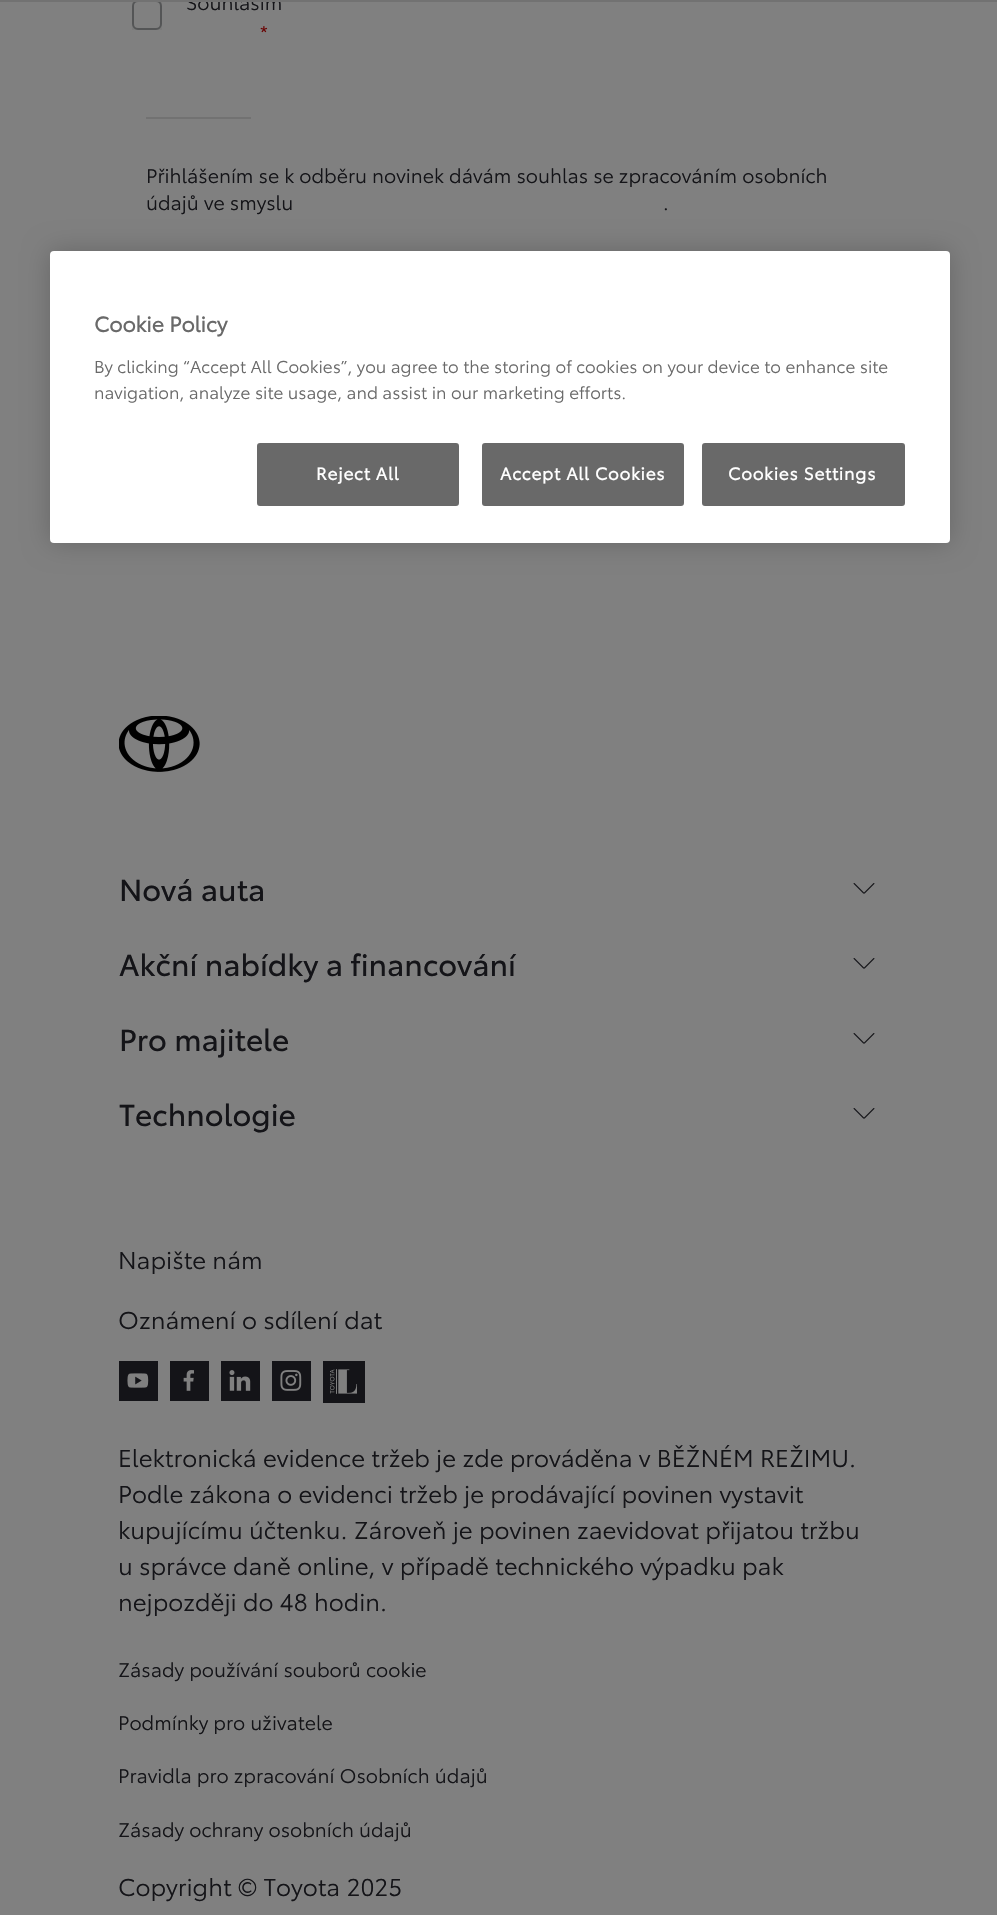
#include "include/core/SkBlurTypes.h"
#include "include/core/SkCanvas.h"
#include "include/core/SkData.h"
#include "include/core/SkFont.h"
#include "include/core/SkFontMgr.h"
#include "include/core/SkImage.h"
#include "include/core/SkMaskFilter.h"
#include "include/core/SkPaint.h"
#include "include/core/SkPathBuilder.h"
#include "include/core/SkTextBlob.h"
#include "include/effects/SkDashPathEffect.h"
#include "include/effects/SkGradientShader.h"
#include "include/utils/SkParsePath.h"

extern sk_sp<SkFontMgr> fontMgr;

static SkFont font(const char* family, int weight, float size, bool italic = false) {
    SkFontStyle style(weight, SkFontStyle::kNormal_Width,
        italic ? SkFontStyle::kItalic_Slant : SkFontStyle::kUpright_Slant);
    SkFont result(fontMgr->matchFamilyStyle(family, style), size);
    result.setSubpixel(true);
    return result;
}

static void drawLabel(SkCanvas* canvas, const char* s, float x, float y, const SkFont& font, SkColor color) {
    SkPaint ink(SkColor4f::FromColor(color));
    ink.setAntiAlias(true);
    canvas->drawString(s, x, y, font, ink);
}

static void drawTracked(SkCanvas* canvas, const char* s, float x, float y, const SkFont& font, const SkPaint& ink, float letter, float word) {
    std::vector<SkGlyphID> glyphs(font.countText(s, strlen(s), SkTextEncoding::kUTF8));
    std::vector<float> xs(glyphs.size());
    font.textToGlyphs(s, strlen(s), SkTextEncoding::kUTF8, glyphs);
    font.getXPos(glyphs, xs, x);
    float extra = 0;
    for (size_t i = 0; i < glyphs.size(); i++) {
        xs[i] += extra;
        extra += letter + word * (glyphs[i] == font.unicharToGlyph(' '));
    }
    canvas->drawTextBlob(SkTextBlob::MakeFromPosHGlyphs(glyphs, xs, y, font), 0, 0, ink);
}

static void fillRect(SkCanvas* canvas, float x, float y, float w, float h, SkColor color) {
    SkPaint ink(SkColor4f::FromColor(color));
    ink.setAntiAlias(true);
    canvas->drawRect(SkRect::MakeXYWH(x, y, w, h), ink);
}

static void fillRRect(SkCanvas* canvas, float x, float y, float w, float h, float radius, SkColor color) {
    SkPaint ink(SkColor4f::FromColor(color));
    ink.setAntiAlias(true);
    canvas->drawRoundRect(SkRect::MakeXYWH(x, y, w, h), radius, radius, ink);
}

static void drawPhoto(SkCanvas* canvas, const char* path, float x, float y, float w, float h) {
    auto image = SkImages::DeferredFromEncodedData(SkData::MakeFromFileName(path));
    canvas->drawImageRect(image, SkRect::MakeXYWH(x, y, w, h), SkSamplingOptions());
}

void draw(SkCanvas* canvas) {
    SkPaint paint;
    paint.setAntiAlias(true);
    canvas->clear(0xFF808080);
    fillRect(canvas, 132, 2, 30, 28, 0xFF7A7A7A);
    paint.setColor(0xFF808080);
    canvas->drawRoundRect(SkRect::MakeXYWH(133, 1, 28, 28), 5, 5, paint);
    paint.setStroke(true);
    paint.setStrokeWidth(2);
    paint.setColor(0xFF545556);
    canvas->drawRoundRect(SkRect::MakeXYWH(133, 1, 28, 28), 5, 5, paint);
    SkFont font1 = font("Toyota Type", 400, 19.5f);
    drawLabel(canvas, "Souhlasím", 186, 10, font1, 0xFF141418);
    fillRect(canvas, 0, 0, 997, 2, 0xFF727272);
    drawLabel(canvas, "*", 260, 40, font1, 0xFF6A0303);
    fillRect(canvas, 146, 117, 105, 2, 0xFF727272);
    drawLabel(canvas, "Přihlášením se k odběru novinek dávám souhlas se zpracováním osobních", 146, 183, font1, 0xFF141418);
    drawLabel(canvas, "údajů ve smyslu", 146, 210, font1, 0xFF141418);
    drawLabel(canvas, ".", 663, 210, font1, 0xFF141418);
    paint.setStroke(false);
    paint.setColor(0x33000000);
    paint.setMaskFilter(SkMaskFilter::MakeBlur(kNormal_SkBlurStyle, 13.5f));
    canvas->drawRoundRect(SkRect::MakeXYWH(50, 251, 900, 292), 4, 4, paint);
    paint.setMaskFilter(nullptr);
    fillRRect(canvas, 50, 251, 900, 292, 4, 0xFFFFFFFF);
    SkFont font2 = font("Toyota Type", 700, 21);
    drawLabel(canvas, "Cookie Policy", 94, 332, font2, 0xFF696969);
    SkFont font3 = font("Toyota Type", 400, 17.05f);
    drawLabel(canvas, "By clicking “Accept All Cookies”, you agree to the storing of cookies on your device to enhance site", 94, 373, font3, 0xFF696969);
    drawLabel(canvas, "navigation, analyze site usage, and assist in our marketing efforts.", 94, 399, font3, 0xFF696969);
    paint.setColor(0xFF696969);
    canvas->drawRoundRect(SkRect::MakeXYWH(258, 444, 200, 61), 2, 2, paint);
    paint.setStroke(true);
    canvas->drawRoundRect(SkRect::MakeXYWH(258, 444, 200, 61), 2, 2, paint);
    SkFont font4 = font("Toyota Type", 700, 17.05f);
    paint.setStroke(false);
    paint.setColor(0xFFFFFFFF);
    drawTracked(canvas, "Reject All", 316, 480, font4, paint, 0.8f, 0);
    paint.setColor(0xFF696969);
    canvas->drawRoundRect(SkRect::MakeXYWH(483, 444, 200, 61), 2, 2, paint);
    paint.setStroke(true);
    canvas->drawRoundRect(SkRect::MakeXYWH(483, 444, 200, 61), 2, 2, paint);
    paint.setStroke(false);
    paint.setColor(0xFFFFFFFF);
    drawTracked(canvas, "Accept All Cookies", 500, 480, font4, paint, 0.8f, 0);
    paint.setColor(0xFF696969);
    canvas->drawRoundRect(SkRect::MakeXYWH(703, 444, 201, 61), 2, 2, paint);
    paint.setStroke(true);
    canvas->drawRoundRect(SkRect::MakeXYWH(703, 444, 201, 61), 2, 2, paint);
    paint.setStroke(false);
    paint.setColor(0xFFFFFFFF);
    drawTracked(canvas, "Cookies Settings", 728, 480, font4, paint, 0.8f, 0);
    drawPhoto(canvas, "assets/img1.png", 119, 716, 81, 56);
    SkFont font5 = font("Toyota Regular", 400, 30);
    drawLabel(canvas, "Nová auta", 119, 901, font5, 0xFF141418);
    drawPhoto(canvas, "assets/img2.png", 853, 883, 22, 11);
    drawLabel(canvas, "Akční nabídky a financování", 119, 976, font5, 0xFF141418);
    drawPhoto(canvas, "assets/img2.png", 853, 958, 22, 11);
    drawLabel(canvas, "Pro majitele", 119, 1051, font5, 0xFF141418);
    drawPhoto(canvas, "assets/img2.png", 853, 1033, 22, 11);
    drawLabel(canvas, "Technologie", 119, 1126, font5, 0xFF141418);
    drawPhoto(canvas, "assets/img2.png", 853, 1108, 22, 11);
    SkFont font6 = font("Toyota Type", 400, 24);
    drawLabel(canvas, "Napište nám", 118, 1269, font6, 0xFF141418);
    drawLabel(canvas, "Oznámení o sdílení dat", 118, 1329, font6, 0xFF141418);
    fillRect(canvas, 119, 1361, 39, 40, 0xFF141418);
    drawPhoto(canvas, "assets/img3.png", 127, 1373, 22, 15);
    fillRect(canvas, 170, 1361, 39, 40, 0xFF141418);
    drawPhoto(canvas, "assets/img4.png", 183, 1370, 11, 21);
    fillRect(canvas, 221, 1361, 39, 40, 0xFF141418);
    drawPhoto(canvas, "assets/img5.png", 229, 1370, 22, 21);
    fillRect(canvas, 272, 1361, 39, 40, 0xFF141418);
    drawPhoto(canvas, "assets/img6.png", 280, 1370, 22, 21);
    fillRect(canvas, 323, 1361, 42, 42, 0xFF141418);
    drawPhoto(canvas, "assets/img7.png", 330, 1369, 27, 25);
    drawLabel(canvas, "Elektronická evidence tržeb je zde prováděna v BĚŽNÉM REŽIMU.", 118, 1467, font6, 0xFF141418);
    drawLabel(canvas, "Podle zákona o evidenci tržeb je prodávající povinen vystavit", 118, 1503, font6, 0xFF141418);
    drawLabel(canvas, "kupujícímu účtenku. Zároveň je povinen zaevidovat přijatou tržbu", 118, 1539, font6, 0xFF141418);
    drawLabel(canvas, "u správce daně online, v případě technického výpadku pak", 118, 1575, font6, 0xFF141418);
    drawLabel(canvas, "nejpozději do 48 hodin.", 118, 1611, font6, 0xFF141418);
    drawLabel(canvas, "Zásady používání souborů cookie", 118, 1677, font1, 0xFF141418);
    drawLabel(canvas, "Podmínky pro uživatele", 118, 1730, font1, 0xFF141418);
    drawLabel(canvas, "Pravidla pro zpracování Osobních údajů", 118, 1783, font1, 0xFF141418);
    drawLabel(canvas, "Zásady ochrany osobních údajů", 118, 1837, font1, 0xFF141418);
    drawLabel(canvas, "Copyright © Toyota 2025", 118, 1896, font6, 0xFF141418);
}
